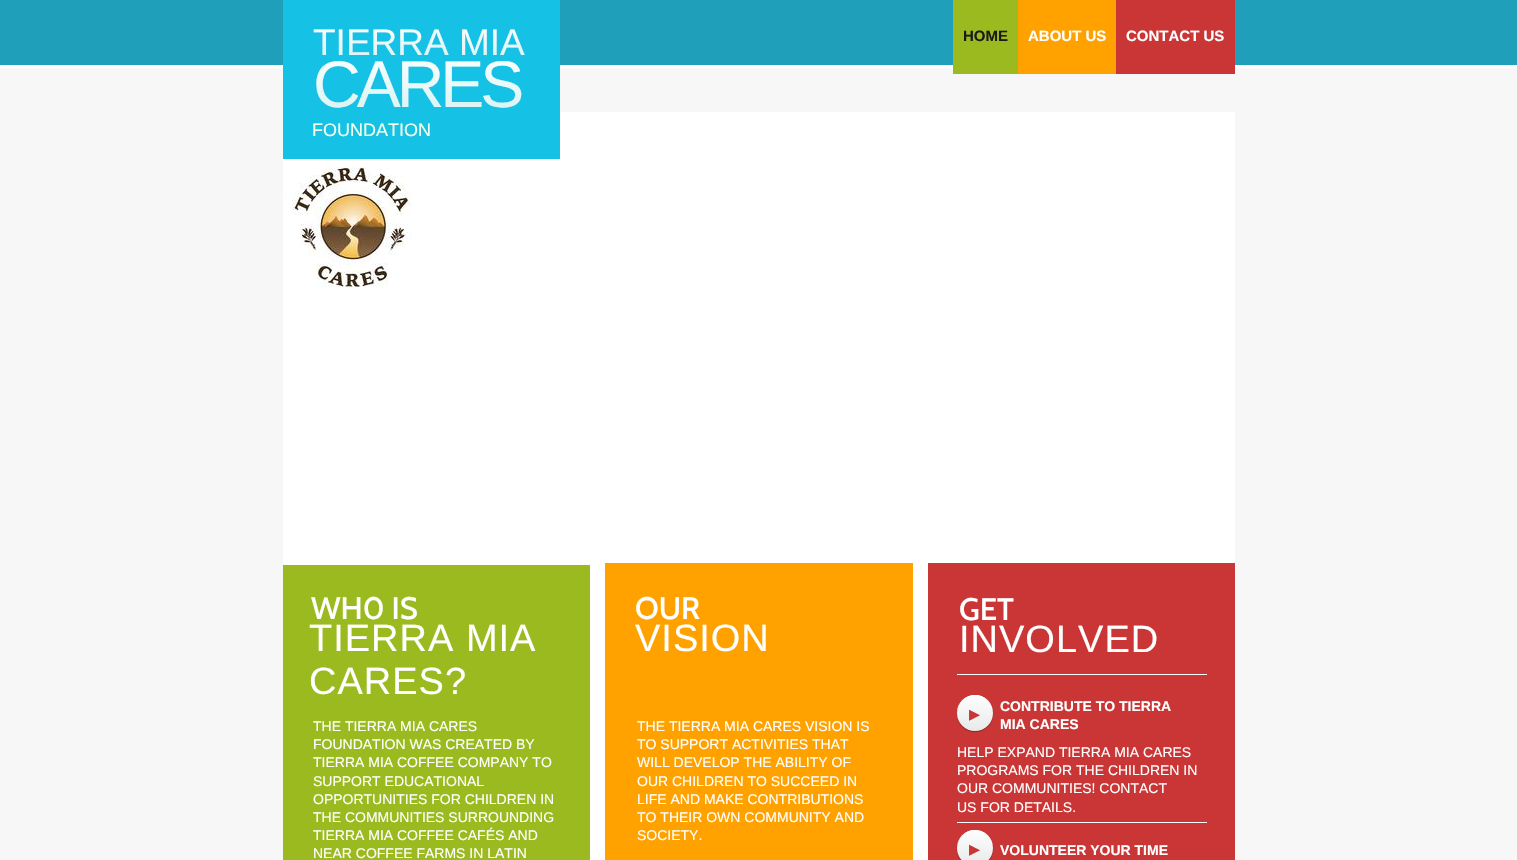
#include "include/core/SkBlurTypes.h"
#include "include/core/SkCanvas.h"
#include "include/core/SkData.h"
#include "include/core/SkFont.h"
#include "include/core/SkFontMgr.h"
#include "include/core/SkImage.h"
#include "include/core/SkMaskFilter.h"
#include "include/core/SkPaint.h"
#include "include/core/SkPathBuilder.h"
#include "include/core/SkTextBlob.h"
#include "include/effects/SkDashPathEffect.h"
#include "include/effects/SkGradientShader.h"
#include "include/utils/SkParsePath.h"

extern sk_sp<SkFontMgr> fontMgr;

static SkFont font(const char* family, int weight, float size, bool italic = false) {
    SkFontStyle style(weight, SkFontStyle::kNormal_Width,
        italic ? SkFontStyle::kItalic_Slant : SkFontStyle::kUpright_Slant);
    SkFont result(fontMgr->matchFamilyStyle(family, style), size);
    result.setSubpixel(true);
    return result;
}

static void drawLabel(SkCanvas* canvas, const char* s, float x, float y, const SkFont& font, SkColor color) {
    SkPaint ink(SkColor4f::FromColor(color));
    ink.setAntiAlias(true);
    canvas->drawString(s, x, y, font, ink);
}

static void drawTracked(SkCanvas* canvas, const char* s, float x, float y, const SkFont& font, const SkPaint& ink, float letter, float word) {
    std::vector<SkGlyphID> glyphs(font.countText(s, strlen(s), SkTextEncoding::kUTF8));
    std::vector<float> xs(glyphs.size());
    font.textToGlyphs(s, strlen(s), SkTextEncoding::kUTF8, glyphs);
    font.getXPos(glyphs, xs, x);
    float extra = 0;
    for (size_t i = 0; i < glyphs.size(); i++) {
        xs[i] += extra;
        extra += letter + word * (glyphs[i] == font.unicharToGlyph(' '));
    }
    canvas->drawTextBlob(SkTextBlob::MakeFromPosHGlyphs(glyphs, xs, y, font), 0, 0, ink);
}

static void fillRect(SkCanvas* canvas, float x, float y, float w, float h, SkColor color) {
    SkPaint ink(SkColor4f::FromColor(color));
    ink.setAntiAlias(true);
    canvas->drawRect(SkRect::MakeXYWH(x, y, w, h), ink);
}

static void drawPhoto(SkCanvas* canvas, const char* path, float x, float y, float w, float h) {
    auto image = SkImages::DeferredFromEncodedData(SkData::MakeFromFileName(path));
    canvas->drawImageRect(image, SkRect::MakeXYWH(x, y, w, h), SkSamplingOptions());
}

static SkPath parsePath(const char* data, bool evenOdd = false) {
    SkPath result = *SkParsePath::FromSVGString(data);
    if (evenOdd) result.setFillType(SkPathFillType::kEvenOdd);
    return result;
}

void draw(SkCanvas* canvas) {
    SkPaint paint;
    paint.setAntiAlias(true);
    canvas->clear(0xFFF7F7F7);
    drawPhoto(canvas, "assets/img1.png", 0, 0, 1517, 68);
    fillRect(canvas, 283, 112, 952, 748, 0xFFFFFFFF);
    fillRect(canvas, 283, 0, 277, 159, 0xFF15C1E5);
    SkFont font1 = font("Liberation Sans", 400, 37);
    {
        const SkColor colors[] = {0xFFFFFFFF, 0xFFD5F2F2};
        const float stops[] = {0, 1};
        const SkPoint ends[] = {{418, 22}, {418, 63}};
        paint.setShader(SkGradientShader::MakeLinear(ends, colors, stops, 2, SkTileMode::kClamp));
        paint.setAlpha(255);
    }
    canvas->drawString("TIERRA MIA", 313, 55, font1, paint);
    SkFont font2 = font("Liberation Sans", 400, 66);
    {
        const SkColor colors[] = {0xFFFFFFFF, 0xFFD5F2F2};
        const float stops[] = {0, 1};
        const SkPoint ends[] = {{416, 47}, {416, 121}};
        paint.setShader(SkGradientShader::MakeLinear(ends, colors, stops, 2, SkTileMode::kClamp));
        paint.setAlpha(255);
    }
    drawTracked(canvas, "CARES", 313, 107, font2, paint, -4, 0);
    fillRect(canvas, 953, 0, 65, 74, 0xFF9BBA1F);
    SkFont font3 = font("Liberation Sans", 700, 15);
    drawLabel(canvas, "HOME", 963, 41, font3, 0xFF1A1A1A);
    fillRect(canvas, 1018, 0, 98, 74, 0xFFFFA200);
    drawLabel(canvas, "ABOUT US", 1028, 41, font3, 0xFFFFFFFF);
    fillRect(canvas, 1116, 0, 119, 74, 0xFFCA3535);
    drawLabel(canvas, "CONTACT US", 1126, 41, font3, 0xFFFFFFFF);
    SkFont font4 = font("Liberation Sans", 400, 18);
    drawLabel(canvas, "FOUNDATION", 312, 136, font4, 0xFFF0FFF0);
    drawPhoto(canvas, "assets/img2.png", 284, 159, 128, 128);
    fillRect(canvas, 283, 565, 307, 295, 0xFF9BBA1F);
    fillRect(canvas, 605, 563, 308, 297, 0xFFFFA200);
    fillRect(canvas, 928, 563, 307, 297, 0xFFCA3535);
    SkFont font5 = font("Cabin", 500, 31);
    drawLabel(canvas, "WH0 IS", 311, 619, font5, 0xFFFFFFFF);
    drawLabel(canvas, "OUR", 635, 619, font5, 0xFFFFFFFF);
    drawLabel(canvas, "GET", 959, 620, font5, 0xFFFFFFFF);
    SkFont font6 = font("Liberation Sans", 400, 38);
    paint.setShader(nullptr);
    paint.setColor(0xFFFFFFFF);
    drawTracked(canvas, "TIERRA MIA", 309, 651, font6, paint, 1, 0);
    drawTracked(canvas, "CARES?", 309, 694, font6, paint, 1, 0);
    drawTracked(canvas, "VISION", 635, 651, font6, paint, 1, 0);
    drawTracked(canvas, "INVOLVED", 959, 652, font6, paint, 1, 0);
    fillRect(canvas, 957, 674, 250, 1, 0xFFFFFFFF);
    paint.setColor(0x4D000000);
    paint.setMaskFilter(SkMaskFilter::MakeBlur(kNormal_SkBlurStyle, 0.5f));
    canvas->drawRoundRect(SkRect::MakeXYWH(957, 696, 36, 36), 18, 18, paint);
    paint.setMaskFilter(nullptr);
    {
        const SkColor colors[] = {0xFFFDFEFE, 0xFFE8EAEA};
        const float stops[] = {0, 1};
        const SkPoint ends[] = {{975, 695}, {975, 731}};
        paint.setShader(SkGradientShader::MakeLinear(ends, colors, stops, 2, SkTileMode::kClamp));
        paint.setAlpha(255);
    }
    canvas->drawCircle(975, 713, 18, paint);
    paint.setShader(nullptr);
    paint.setColor(0xE6FFFFFF);
    canvas->drawPath(parsePath("M975 696C987 696 993 704.5 993 713.5C993 710 992 706 990 703C980 688 956.5 695.5 957 713.5C957 704.5 963 696 975 696Z"), paint);
    SkFont font7 = font("Liberation Sans", 700, 14);
    drawLabel(canvas, "CONTRIBUTE TO TIERRA", 1000, 711, font7, 0xFFFFFFFF);
    drawLabel(canvas, "MIA CARES", 1000, 729, font7, 0xFFFFFFFF);
    SkFont font8 = font("DejaVu Sans", 400, 22);
    drawLabel(canvas, "▸", 969, 721, font8, 0xFFCA3535);
    SkFont font9 = font("Liberation Sans", 400, 14);
    drawLabel(canvas, "THE TIERRA MIA CARES", 313, 731, font9, 0xFFFFFFFF);
    drawLabel(canvas, "FOUNDATION WAS CREATED BY", 313, 749, font9, 0xFFFFFFFF);
    drawLabel(canvas, "TIERRA MIA COFFEE COMPANY TO", 313, 767, font9, 0xFFFFFFFF);
    drawLabel(canvas, "SUPPORT EDUCATIONAL", 313, 786, font9, 0xFFFFFFFF);
    drawLabel(canvas, "OPPORTUNITIES FOR CHILDREN IN", 313, 804, font9, 0xFFFFFFFF);
    drawLabel(canvas, "THE COMMUNITIES SURROUNDING", 313, 822, font9, 0xFFFFFFFF);
    drawLabel(canvas, "TIERRA MIA COFFEE CAFÉS AND", 313, 840, font9, 0xFFFFFFFF);
    drawLabel(canvas, "NEAR COFFEE FARMS IN LATIN", 313, 858, font9, 0xFFFFFFFF);
    drawLabel(canvas, "THE TIERRA MIA CARES VISION IS", 637, 731, font9, 0xFFFFFFFF);
    drawLabel(canvas, "TO SUPPORT ACTIVITIES THAT", 637, 749, font9, 0xFFFFFFFF);
    drawLabel(canvas, "WILL DEVELOP THE ABILITY OF", 637, 767, font9, 0xFFFFFFFF);
    drawLabel(canvas, "OUR CHILDREN TO SUCCEED IN", 637, 786, font9, 0xFFFFFFFF);
    drawLabel(canvas, "LIFE AND MAKE CONTRIBUTIONS", 637, 804, font9, 0xFFFFFFFF);
    drawLabel(canvas, "TO THEIR OWN COMMUNITY AND", 637, 822, font9, 0xFFFFFFFF);
    drawLabel(canvas, "SOCIETY.", 637, 840, font9, 0xFFFFFFFF);
    drawLabel(canvas, "HELP EXPAND TIERRA MIA CARES", 957, 757, font9, 0xFFFFFFFF);
    drawLabel(canvas, "PROGRAMS FOR THE CHILDREN IN", 957, 775, font9, 0xFFFFFFFF);
    drawLabel(canvas, "OUR COMMUNITIES! CONTACT", 957, 793, font9, 0xFFFFFFFF);
    drawLabel(canvas, "US FOR DETAILS.", 957, 812, font9, 0xFFFFFFFF);
    fillRect(canvas, 957, 822, 250, 1, 0xFFFFFFFF);
    paint.setColor(0x4D000000);
    paint.setMaskFilter(SkMaskFilter::MakeBlur(kNormal_SkBlurStyle, 0.5f));
    canvas->drawRoundRect(SkRect::MakeXYWH(957, 831, 36, 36), 18, 18, paint);
    paint.setMaskFilter(nullptr);
    {
        const SkColor colors[] = {0xFFFDFEFE, 0xFFE8EAEA};
        const float stops[] = {0, 1};
        const SkPoint ends[] = {{975, 830}, {975, 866}};
        paint.setShader(SkGradientShader::MakeLinear(ends, colors, stops, 2, SkTileMode::kClamp));
        paint.setAlpha(255);
    }
    canvas->drawCircle(975, 848, 18, paint);
    paint.setShader(nullptr);
    paint.setColor(0xE6FFFFFF);
    canvas->drawPath(parsePath("M975 831C987 831 993 839.5 993 848.5C993.5 830.5 970 823 960 838C958 841 957 845 957 848.5C957 839.5 963 831 975 831Z"), paint);
    drawLabel(canvas, "▸", 969, 856, font8, 0xFFCA3535);
    drawLabel(canvas, "VOLUNTEER YOUR TIME", 1000, 855, font7, 0xFFFFFFFF);
}
